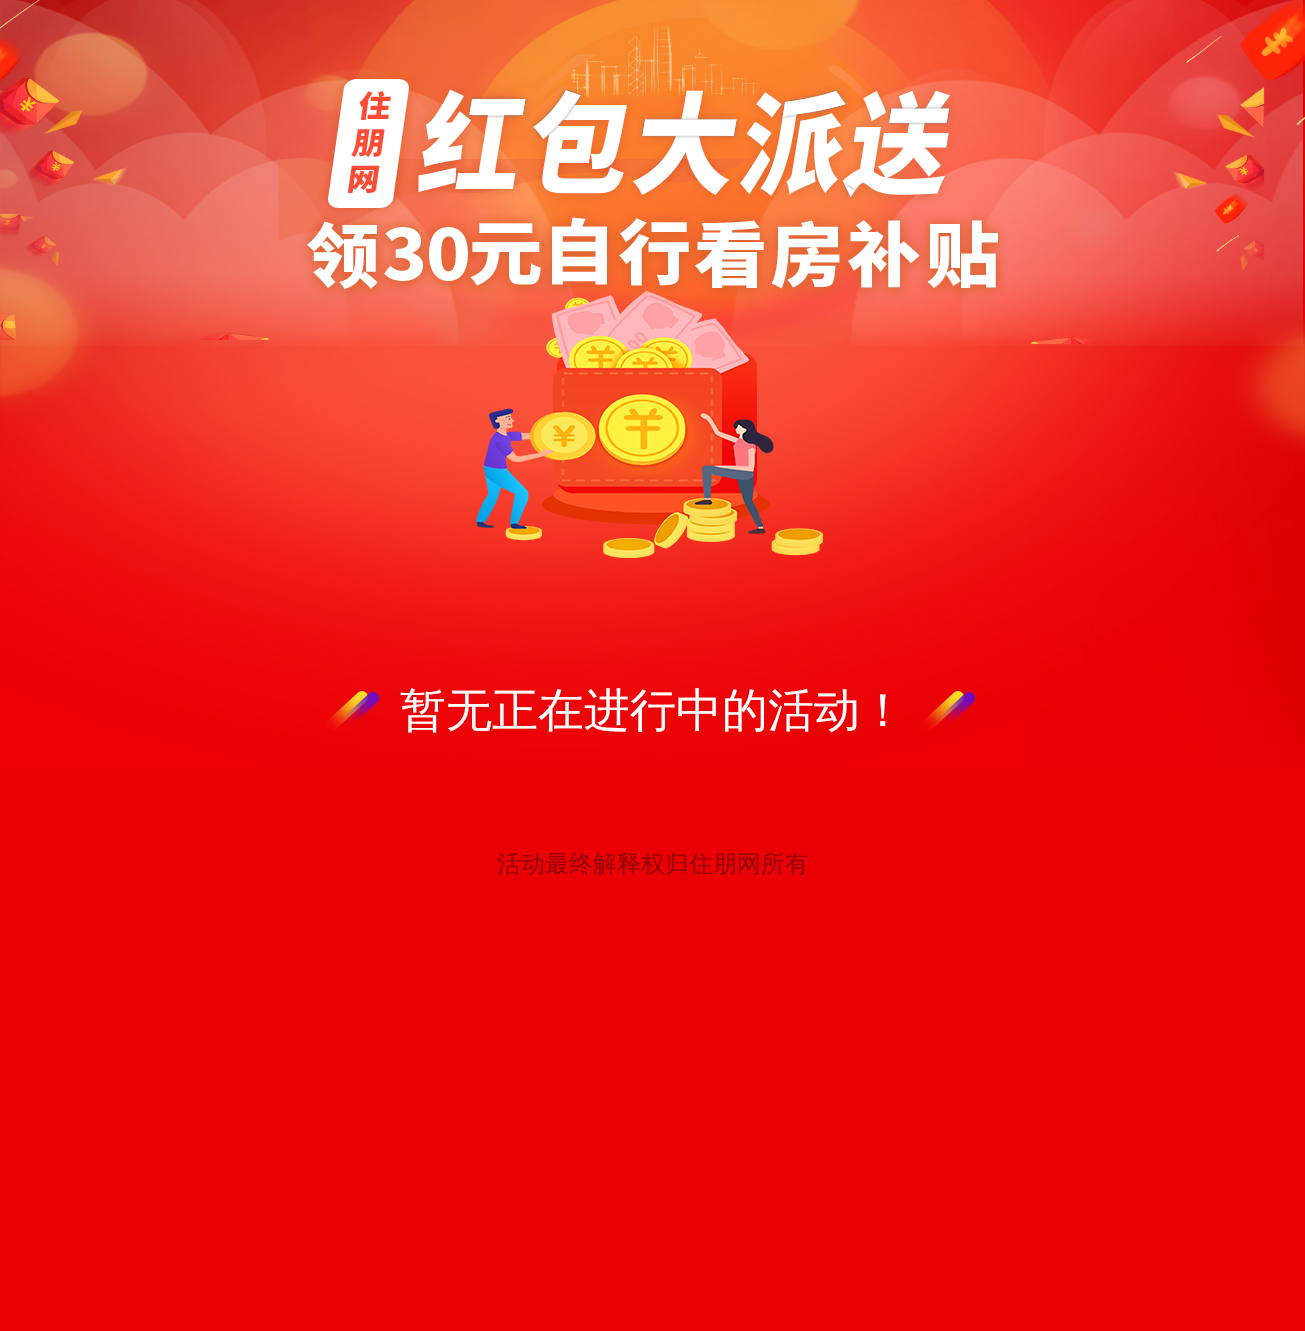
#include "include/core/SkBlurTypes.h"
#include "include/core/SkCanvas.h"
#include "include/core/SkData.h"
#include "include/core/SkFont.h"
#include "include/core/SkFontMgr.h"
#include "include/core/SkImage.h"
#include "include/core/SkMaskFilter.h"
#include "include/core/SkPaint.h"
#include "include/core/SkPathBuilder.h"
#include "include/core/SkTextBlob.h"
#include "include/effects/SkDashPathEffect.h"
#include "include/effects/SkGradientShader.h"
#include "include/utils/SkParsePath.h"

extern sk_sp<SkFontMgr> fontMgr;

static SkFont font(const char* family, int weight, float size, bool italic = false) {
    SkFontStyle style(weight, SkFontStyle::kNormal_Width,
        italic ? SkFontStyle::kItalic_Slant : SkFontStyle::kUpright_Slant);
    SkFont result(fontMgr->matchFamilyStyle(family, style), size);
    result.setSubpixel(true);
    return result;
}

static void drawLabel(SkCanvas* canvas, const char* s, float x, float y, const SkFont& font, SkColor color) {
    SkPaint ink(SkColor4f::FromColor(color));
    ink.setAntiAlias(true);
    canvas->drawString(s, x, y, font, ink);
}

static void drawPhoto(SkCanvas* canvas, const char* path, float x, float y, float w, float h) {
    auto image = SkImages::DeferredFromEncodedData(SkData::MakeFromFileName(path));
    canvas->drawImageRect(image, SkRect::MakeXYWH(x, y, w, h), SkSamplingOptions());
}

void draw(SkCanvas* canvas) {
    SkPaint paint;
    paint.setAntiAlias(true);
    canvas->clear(0xFFEA0004);
    drawPhoto(canvas, "assets/img1.png", 0, 0, 1305, 768);
    drawPhoto(canvas, "assets/img2.png", 278, 75, 729, 483);
    drawPhoto(canvas, "assets/img3.png", 326, 691, 53, 40);
    SkFont font1 = font("WenQuanYi Zen Hei", 500, 46);
    drawLabel(canvas, "暂无正在进行中的活动！", 400, 726, font1, 0xFFFFFFFF);
    drawPhoto(canvas, "assets/img4.png", 922, 691, 53, 40);
    SkFont font2 = font("WenQuanYi Zen Hei", 500, 24);
    drawLabel(canvas, "活动最终解释权归住朋网所有", 497, 872, font2, 0xFF920205);
}
